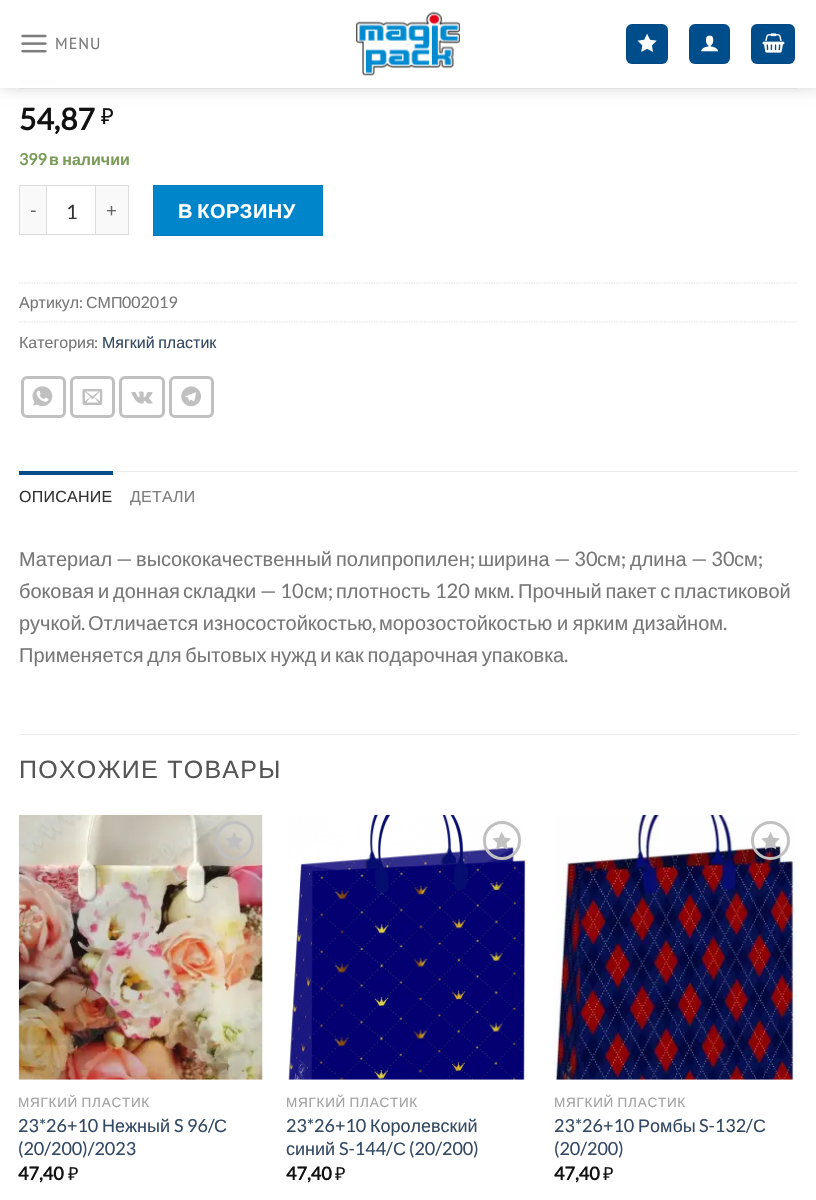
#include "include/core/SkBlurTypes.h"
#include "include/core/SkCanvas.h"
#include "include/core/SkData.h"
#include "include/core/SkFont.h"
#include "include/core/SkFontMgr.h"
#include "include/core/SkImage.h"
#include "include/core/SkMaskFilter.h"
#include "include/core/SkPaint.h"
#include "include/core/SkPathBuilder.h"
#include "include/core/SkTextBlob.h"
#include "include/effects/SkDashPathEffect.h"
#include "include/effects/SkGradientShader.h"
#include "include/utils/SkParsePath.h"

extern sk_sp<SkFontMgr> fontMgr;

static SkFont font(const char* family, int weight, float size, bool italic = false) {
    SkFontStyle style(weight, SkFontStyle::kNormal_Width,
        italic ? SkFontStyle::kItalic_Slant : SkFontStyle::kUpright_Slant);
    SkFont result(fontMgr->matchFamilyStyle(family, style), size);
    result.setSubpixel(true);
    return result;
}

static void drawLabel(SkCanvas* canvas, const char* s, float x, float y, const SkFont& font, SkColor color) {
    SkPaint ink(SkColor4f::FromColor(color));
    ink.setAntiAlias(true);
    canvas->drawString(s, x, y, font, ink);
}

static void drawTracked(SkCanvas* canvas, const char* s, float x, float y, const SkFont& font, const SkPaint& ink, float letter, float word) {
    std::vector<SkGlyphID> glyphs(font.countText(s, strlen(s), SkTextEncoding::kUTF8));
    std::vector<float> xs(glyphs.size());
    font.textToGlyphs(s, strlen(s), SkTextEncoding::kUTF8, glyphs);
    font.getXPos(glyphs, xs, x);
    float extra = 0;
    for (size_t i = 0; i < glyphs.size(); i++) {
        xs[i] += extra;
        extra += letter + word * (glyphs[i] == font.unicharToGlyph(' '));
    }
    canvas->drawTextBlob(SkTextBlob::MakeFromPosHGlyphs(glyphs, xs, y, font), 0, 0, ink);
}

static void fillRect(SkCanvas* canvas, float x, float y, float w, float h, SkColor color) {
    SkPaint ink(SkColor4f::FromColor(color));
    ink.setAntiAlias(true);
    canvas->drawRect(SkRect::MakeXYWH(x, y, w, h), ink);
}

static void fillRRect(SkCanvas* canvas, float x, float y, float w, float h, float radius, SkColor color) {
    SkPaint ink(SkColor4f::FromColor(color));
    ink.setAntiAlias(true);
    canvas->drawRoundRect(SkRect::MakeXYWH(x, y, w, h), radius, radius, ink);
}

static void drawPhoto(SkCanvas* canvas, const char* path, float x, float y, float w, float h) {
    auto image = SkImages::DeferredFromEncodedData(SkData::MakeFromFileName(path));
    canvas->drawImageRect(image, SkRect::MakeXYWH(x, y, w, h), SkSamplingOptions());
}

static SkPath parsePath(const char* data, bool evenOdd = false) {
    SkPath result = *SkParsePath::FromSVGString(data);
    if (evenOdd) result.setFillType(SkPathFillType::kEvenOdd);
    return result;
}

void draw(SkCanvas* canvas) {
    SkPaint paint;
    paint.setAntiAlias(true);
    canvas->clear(0xFFFFFFFF);
    fillRect(canvas, 19, 80, 37, 4, 0xFFE6E6E6);
    canvas->save();
    canvas->clipPath(parsePath("M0 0H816V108H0ZM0 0H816V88H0Z", true), true);
    paint.setColor(0x26000000);
    paint.setMaskFilter(SkMaskFilter::MakeBlur(kNormal_SkBlurStyle, 6));
    canvas->drawRect(SkRect::MakeXYWH(1, 1, 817, 88), paint);
    paint.setMaskFilter(nullptr);
    canvas->restore();
    drawPhoto(canvas, "assets/img1.png", 21, 34, 26, 19);
    SkFont font1 = font("PT Sans", 400, 16);
    paint.setColor(0xFF777777);
    drawTracked(canvas, "MENU", 55, 49, font1, paint, 1, 0);
    drawPhoto(canvas, "assets/img2.png", 356, 11, 104, 65);
    fillRRect(canvas, 626, 24, 42, 40, 6, 0xFF004D8C);
    paint.setStroke(true);
    paint.setStrokeWidth(1);
    paint.setColor(0x0D000000);
    canvas->drawRect(SkRect::MakeXYWH(626.5f, 24.5f, 41, 39), paint);
    drawPhoto(canvas, "assets/img3.png", 637, 33, 20, 19);
    fillRRect(canvas, 689, 24, 41, 40, 6, 0xFF004D8C);
    canvas->drawRect(SkRect::MakeXYWH(689.5f, 24.5f, 40, 39), paint);
    drawPhoto(canvas, "assets/img4.png", 701, 35, 17, 17);
    fillRRect(canvas, 751, 24, 44, 40, 6, 0xFF004D8C);
    canvas->drawRect(SkRect::MakeXYWH(751.5f, 24.5f, 43, 39), paint);
    drawPhoto(canvas, "assets/img5.png", 762, 33, 23, 20);
    fillRect(canvas, 19, 88, 779, 1, 0xFFDFDFDF);
    fillRect(canvas, 0, 80, 816, 8, 0xE6FFFFFF);
    SkFont font2 = font("Lato", 700, 30);
    drawLabel(canvas, "54,87", 19, 130, font2, 0xFF111111);
    SkFont font3 = font("Noto Sans", 400, 22);
    drawLabel(canvas, "₽", 101, 124, font3, 0xFF111111);
    SkFont font4 = font("Lato", 700, 16);
    drawLabel(canvas, "399", 19, 165, font4, 0xFF7A9C59);
    SkFont font5 = font("Liberation Sans", 700, 16);
    paint.setStroke(false);
    paint.setColor(0xFF7A9C59);
    drawTracked(canvas, "в наличии", 49, 165, font5, paint, 0, -1);
    fillRect(canvas, 20, 186, 26, 48, 0xFFF9F9F9);
    fillRect(canvas, 19, 185, 27, 1, 0xFFDDDDDD);
    fillRect(canvas, 19, 234, 27, 1, 0xFFDDDDDD);
    fillRect(canvas, 19, 185, 1, 50, 0xFFDDDDDD);
    SkFont font6 = font("Lato", 400, 19);
    paint.setColor(0xFF666666);
    drawTracked(canvas, "-", 30, 217, font6, paint, 1, 0);
    paint.setStroke(true);
    paint.setColor(0xFFDDDDDD);
    canvas->drawRect(SkRect::MakeXYWH(46.5f, 185.5f, 49, 49), paint);
    SkFont font7 = font("Lato", 400, 20);
    drawLabel(canvas, "1", 66, 219, font7, 0xFF333333);
    fillRect(canvas, 96, 186, 32, 48, 0xFFF9F9F9);
    fillRect(canvas, 96, 185, 33, 1, 0xFFDDDDDD);
    fillRect(canvas, 128, 185, 1, 50, 0xFFDDDDDD);
    fillRect(canvas, 96, 234, 33, 1, 0xFFDDDDDD);
    paint.setStroke(false);
    paint.setColor(0xFF666666);
    drawTracked(canvas, "+", 106, 217, font6, paint, 1, 0);
    paint.setColor(0xFF0085CA);
    canvas->drawRect(SkRect::MakeXYWH(153.5f, 185.5f, 169, 50), paint);
    paint.setStroke(true);
    paint.setColor(0xFF007EC0);
    canvas->drawRect(SkRect::MakeXYWH(153.5f, 185.5f, 169, 50), paint);
    SkFont font8 = font("Liberation Sans", 700, 20);
    paint.setStroke(false);
    paint.setColor(0xFFFFFFFF);
    drawTracked(canvas, "В КОРЗИНУ", 178, 218, font8, paint, 0.5f, -1.75f);
    paint.setStroke(true);
    paint.setStrokeWidth(1.2f);
    paint.setColor(0xFFDDDDDD);
    paint.setPathEffect(SkDashPathEffect::Make({{1.25f, 1.25f}}, 0));
    canvas->drawPath(parsePath("M19 283H797.5"), paint);
    paint.setPathEffect(nullptr);
    SkFont font9 = font("Liberation Sans", 400, 16);
    drawLabel(canvas, "Артикул", 19, 308, font9, 0xFF777777);
    SkFont font10 = font("Lato", 400, 16);
    drawLabel(canvas, ":", 79, 308, font10, 0xFF777777);
    drawLabel(canvas, "СМП", 86, 308, font9, 0xFF777777);
    drawLabel(canvas, "002019", 122, 308, font10, 0xFF777777);
    paint.setPathEffect(SkDashPathEffect::Make({{1.25f, 1.25f}}, 0));
    canvas->drawPath(parsePath("M19 322H797.5"), paint);
    paint.setPathEffect(nullptr);
    drawLabel(canvas, "Категория", 19, 348, font9, 0xFF777777);
    drawLabel(canvas, ":", 94, 348, font10, 0xFF777777);
    paint.setStroke(false);
    paint.setColor(0xFF334862);
    drawTracked(canvas, "Мягкий пластик", 102, 348, font9, paint, 0, -1);
    paint.setStroke(true);
    paint.setStrokeWidth(3);
    paint.setColor(0xFFC0C0C0);
    canvas->drawRoundRect(SkRect::MakeXYWH(22.5f, 377.5f, 42, 39), 4.5f, 4.5f, paint);
    drawPhoto(canvas, "assets/img6.png", 32, 386, 21, 21);
    canvas->drawRoundRect(SkRect::MakeXYWH(71.5f, 377.5f, 42, 39), 4.5f, 4.5f, paint);
    drawPhoto(canvas, "assets/img7.png", 82, 388, 21, 17);
    canvas->drawRoundRect(SkRect::MakeXYWH(120.5f, 377.5f, 43, 39), 4.5f, 4.5f, paint);
    drawPhoto(canvas, "assets/img8.png", 131, 391, 22, 13);
    canvas->drawRoundRect(SkRect::MakeXYWH(170.5f, 377.5f, 42, 39), 4.5f, 4.5f, paint);
    drawPhoto(canvas, "assets/img9.png", 181, 386, 20, 21);
    fillRect(canvas, 113, 471, 685, 1, 0xFFECECEC);
    fillRect(canvas, 19, 471, 94, 4, 0xFF004D8C);
    paint.setStroke(false);
    paint.setColor(0xFF333333);
    drawTracked(canvas, "ОПИСАНИЕ", 19, 502, font9, paint, 0.25f, 0);
    paint.setColor(0xFF7D7D7D);
    drawTracked(canvas, "ДЕТАЛИ", 130, 502, font9, paint, 0.25f, 0);
    SkFont font11 = font("Liberation Sans", 400, 20);
    drawLabel(canvas, "Материал", 19, 566, font11, 0xFF777777);
    drawLabel(canvas, "—", 116, 566, font7, 0xFF777777);
    drawLabel(canvas, "высококачественный", 136, 566, font11, 0xFF777777);
    drawLabel(canvas, "полипропилен", 336, 566, font11, 0xFF777777);
    drawLabel(canvas, ";", 470, 566, font7, 0xFF777777);
    drawLabel(canvas, "ширина", 478, 566, font11, 0xFF777777);
    drawLabel(canvas, "— 30", 554, 566, font7, 0xFF777777);
    drawLabel(canvas, "см", 597, 566, font11, 0xFF777777);
    drawLabel(canvas, ";", 621, 566, font7, 0xFF777777);
    drawLabel(canvas, "длина", 630, 566, font11, 0xFF777777);
    drawLabel(canvas, "— 30", 691, 566, font7, 0xFF777777);
    drawLabel(canvas, "см", 734, 566, font11, 0xFF777777);
    drawLabel(canvas, ";", 758, 566, font7, 0xFF777777);
    drawLabel(canvas, "боковая", 19, 598, font11, 0xFF777777);
    drawLabel(canvas, "и", 98, 598, font11, 0xFF777777);
    drawLabel(canvas, "донная", 113, 598, font11, 0xFF777777);
    drawLabel(canvas, "складки", 183, 598, font11, 0xFF777777);
    drawLabel(canvas, "— 10", 260, 598, font7, 0xFF777777);
    drawLabel(canvas, "см", 304, 598, font11, 0xFF777777);
    drawLabel(canvas, ";", 328, 598, font7, 0xFF777777);
    drawLabel(canvas, "плотность", 336, 598, font11, 0xFF777777);
    drawLabel(canvas, "120", 435, 598, font7, 0xFF777777);
    drawLabel(canvas, "мкм", 474, 598, font11, 0xFF777777);
    drawLabel(canvas, ".", 510, 598, font7, 0xFF777777);
    paint.setColor(0xFF777777);
    drawTracked(canvas, "Прочный пакет с пластиковой", 518, 598, font11, paint, 0, -1.75f);
    drawLabel(canvas, "ручкой", 19, 630, font11, 0xFF777777);
    drawLabel(canvas, ".", 81, 630, font7, 0xFF777777);
    drawTracked(canvas, "Отличается износостойкостью", 88, 630, font11, paint, 0, -1);
    drawLabel(canvas, ",", 372, 630, font7, 0xFF777777);
    drawTracked(canvas, "морозостойкостью и ярким дизайном", 379, 630, font11, paint, 0, -1);
    drawLabel(canvas, ".", 723, 630, font7, 0xFF777777);
    drawTracked(canvas, "Применяется для бытовых нужд и как подарочная упаковка", 19, 662, font11, paint, 0, -1.75f);
    drawLabel(canvas, ".", 564, 662, font7, 0xFF777777);
    fillRect(canvas, 19, 734, 779, 1, 0xFFECECEC);
    SkFont font12 = font("Liberation Sans", 400, 25);
    paint.setColor(0xFF555555);
    drawTracked(canvas, "ПОХОЖИЕ ТОВАРЫ", 19, 778, font12, paint, 1.25f, 0);
    drawPhoto(canvas, "assets/img10.png", 18, 814, 245, 266);
    paint.setStroke(true);
    paint.setColor(0xFFC0C0C0);
    canvas->drawCircle(234.5f, 840.5f, 18, paint);
    drawPhoto(canvas, "assets/img11.png", 225, 832, 19, 17);
    canvas->save();
    canvas->clipRect(SkRect::MakeXYWH(19, 1095, 244, 15));
    SkFont font13 = font("Liberation Sans", 400, 13.5f);
    paint.setStroke(false);
    paint.setColor(0xFFA0A0A0);
    drawTracked(canvas, "МЯГКИЙ ПЛАСТИК", 18, 1107, font13, paint, 0.75f, -1);
    canvas->restore();
    SkFont font14 = font("Lato", 400, 18);
    drawLabel(canvas, "23*26+10", 18, 1132, font14, 0xFF334862);
    SkFont font15 = font("Liberation Sans", 400, 18);
    drawLabel(canvas, "Нежный", 102, 1132, font15, 0xFF334862);
    drawLabel(canvas, "S 96/", 174, 1132, font14, 0xFF334862);
    drawLabel(canvas, "С", 214, 1132, font15, 0xFF334862);
    drawLabel(canvas, "(20/200)/2023", 18, 1155, font14, 0xFF334862);
    SkFont font16 = font("Lato", 700, 18);
    drawLabel(canvas, "47,40", 18, 1180, font16, 0xFF111111);
    SkFont font17 = font("Noto Sans", 400, 18);
    drawLabel(canvas, "₽", 68, 1180, font17, 0xFF111111);
    drawPhoto(canvas, "assets/img12.png", 288, 814, 238, 266);
    paint.setStroke(true);
    paint.setColor(0xFFC0C0C0);
    canvas->drawRoundRect(SkRect::MakeXYWH(484.5f, 822.5f, 35, 36), 17.5f, 17.5f, paint);
    drawPhoto(canvas, "assets/img13.png", 492, 832, 19, 18);
    paint.setStroke(false);
    paint.setColor(0xFFA0A0A0);
    drawTracked(canvas, "МЯГКИЙ ПЛАСТИК", 286, 1107, font13, paint, 0.75f, -1);
    drawLabel(canvas, "23*26+10", 286, 1132, font14, 0xFF334862);
    drawLabel(canvas, "Королевский", 370, 1132, font15, 0xFF334862);
    drawLabel(canvas, "синий", 286, 1155, font15, 0xFF334862);
    drawLabel(canvas, "S-144/", 339, 1155, font14, 0xFF334862);
    drawLabel(canvas, "С", 393, 1155, font15, 0xFF334862);
    drawLabel(canvas, "(20/200)", 409, 1155, font14, 0xFF334862);
    drawLabel(canvas, "47,40", 286, 1180, font16, 0xFF111111);
    drawLabel(canvas, "₽", 335, 1180, font17, 0xFF111111);
    drawPhoto(canvas, "assets/img14.png", 554, 814, 244, 266);
    paint.setStroke(true);
    paint.setColor(0xFFC0C0C0);
    canvas->drawCircle(770.5f, 840.5f, 18, paint);
    drawPhoto(canvas, "assets/img15.png", 761, 832, 19, 18);
    paint.setStroke(false);
    paint.setColor(0xFFA0A0A0);
    drawTracked(canvas, "МЯГКИЙ ПЛАСТИК", 554, 1107, font13, paint, 0.75f, -1);
    drawLabel(canvas, "23*26+10", 554, 1132, font14, 0xFF334862);
    drawLabel(canvas, "Ромбы", 638, 1132, font15, 0xFF334862);
    drawLabel(canvas, "S-132/", 699, 1132, font14, 0xFF334862);
    drawLabel(canvas, "С", 753, 1132, font15, 0xFF334862);
    drawLabel(canvas, "(20/200)", 554, 1155, font14, 0xFF334862);
    drawLabel(canvas, "47,40", 554, 1180, font16, 0xFF111111);
    drawLabel(canvas, "₽", 603, 1180, font17, 0xFF111111);
}
